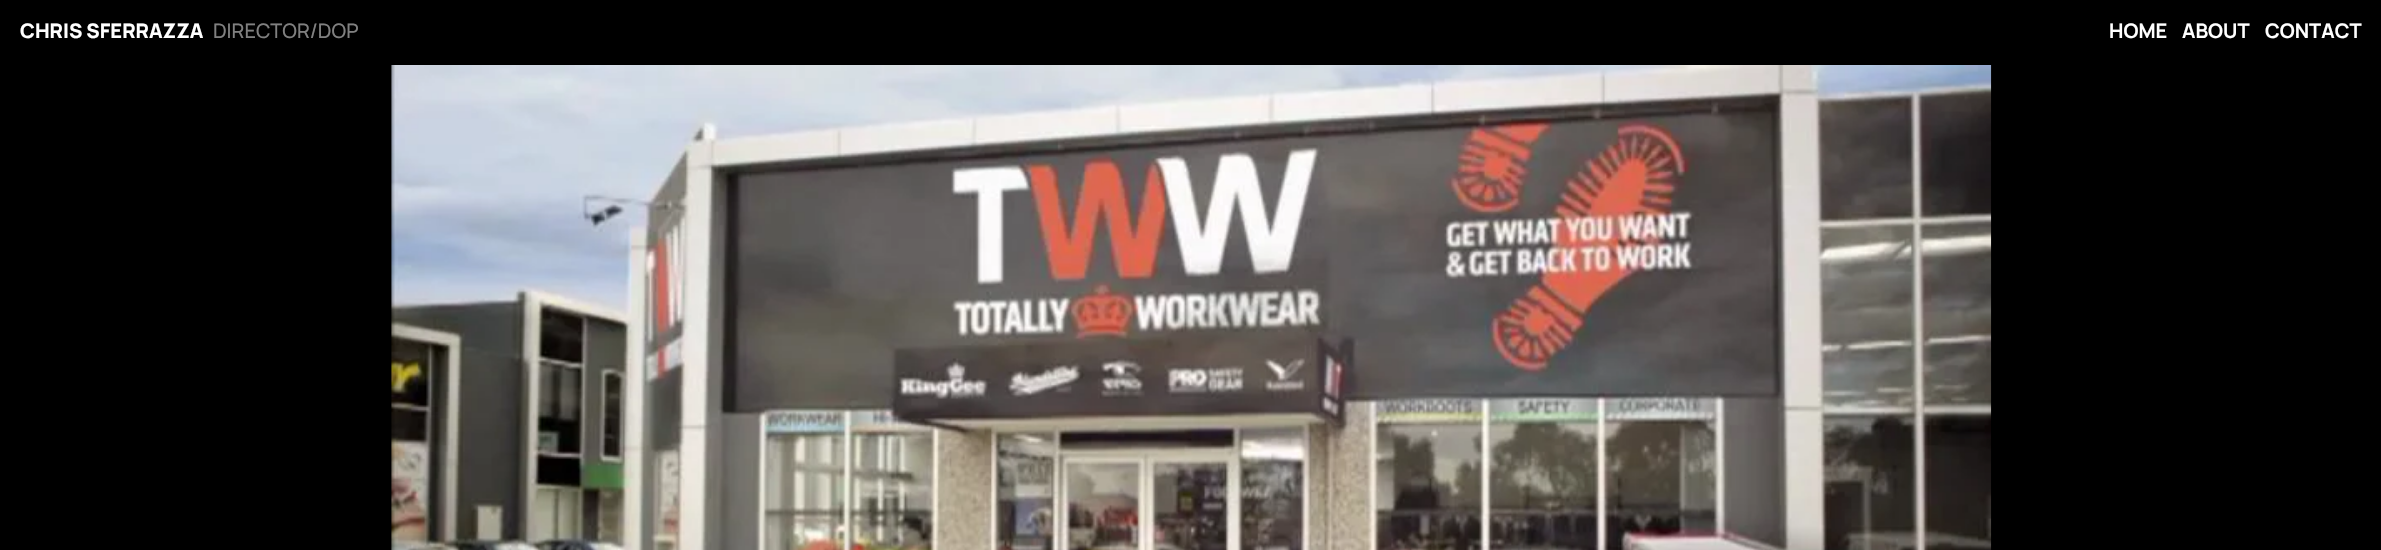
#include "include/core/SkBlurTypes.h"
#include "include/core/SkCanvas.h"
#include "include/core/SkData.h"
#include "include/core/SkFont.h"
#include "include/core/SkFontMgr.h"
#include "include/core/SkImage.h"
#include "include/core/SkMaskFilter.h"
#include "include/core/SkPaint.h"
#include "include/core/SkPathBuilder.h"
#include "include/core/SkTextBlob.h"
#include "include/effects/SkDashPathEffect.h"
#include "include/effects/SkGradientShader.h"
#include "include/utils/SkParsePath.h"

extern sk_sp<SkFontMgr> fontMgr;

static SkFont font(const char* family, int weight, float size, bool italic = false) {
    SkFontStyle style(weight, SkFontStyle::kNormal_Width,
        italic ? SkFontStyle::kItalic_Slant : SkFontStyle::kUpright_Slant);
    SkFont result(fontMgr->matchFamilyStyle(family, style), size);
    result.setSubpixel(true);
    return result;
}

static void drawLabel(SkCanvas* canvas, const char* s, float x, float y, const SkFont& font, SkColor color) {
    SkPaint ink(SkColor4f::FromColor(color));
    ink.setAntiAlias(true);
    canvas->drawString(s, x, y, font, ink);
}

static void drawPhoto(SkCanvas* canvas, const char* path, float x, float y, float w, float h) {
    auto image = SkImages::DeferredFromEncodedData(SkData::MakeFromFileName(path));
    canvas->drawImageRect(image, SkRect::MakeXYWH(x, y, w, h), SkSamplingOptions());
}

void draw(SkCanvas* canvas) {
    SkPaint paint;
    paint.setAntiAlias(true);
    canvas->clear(0xFF000000);
    SkFont font1 = font("Manrope", 800, 20);
    drawLabel(canvas, "CHRIS SFERRAZZA", 20, 38, font1, 0xFFFFFFFF);
    SkFont font2 = font("Manrope", 500, 20);
    drawLabel(canvas, "DIRECTOR/DOP", 213, 38, font2, 0xFF808080);
    SkFont font3 = font("Manrope", 700, 20);
    drawLabel(canvas, "HOME", 2109, 38, font3, 0xFFFFFFFF);
    drawLabel(canvas, "ABOUT", 2182, 38, font3, 0xFFFFFFFF);
    drawLabel(canvas, "CONTACT", 2265, 38, font3, 0xFFFFFFFF);
    drawPhoto(canvas, "assets/img1.png", 391, 65, 1601, 485);
}
